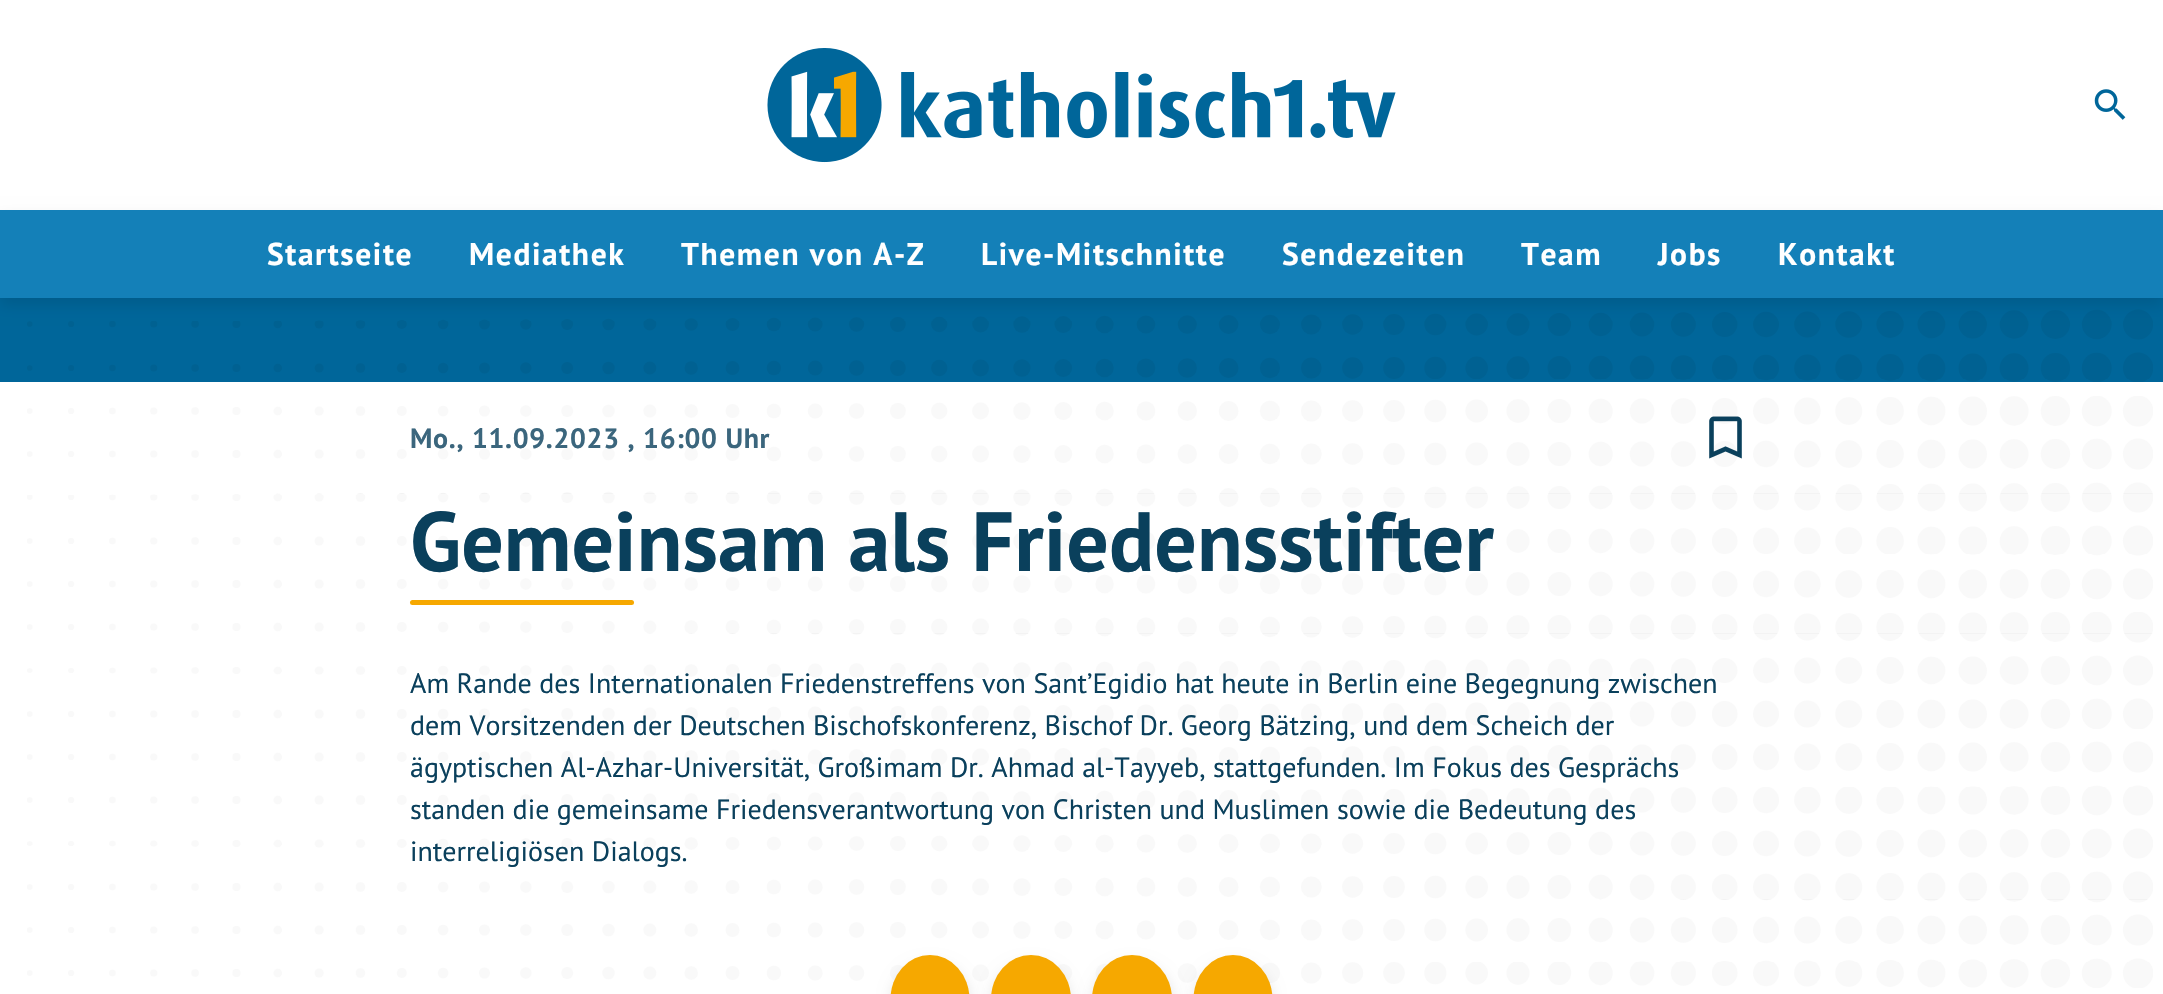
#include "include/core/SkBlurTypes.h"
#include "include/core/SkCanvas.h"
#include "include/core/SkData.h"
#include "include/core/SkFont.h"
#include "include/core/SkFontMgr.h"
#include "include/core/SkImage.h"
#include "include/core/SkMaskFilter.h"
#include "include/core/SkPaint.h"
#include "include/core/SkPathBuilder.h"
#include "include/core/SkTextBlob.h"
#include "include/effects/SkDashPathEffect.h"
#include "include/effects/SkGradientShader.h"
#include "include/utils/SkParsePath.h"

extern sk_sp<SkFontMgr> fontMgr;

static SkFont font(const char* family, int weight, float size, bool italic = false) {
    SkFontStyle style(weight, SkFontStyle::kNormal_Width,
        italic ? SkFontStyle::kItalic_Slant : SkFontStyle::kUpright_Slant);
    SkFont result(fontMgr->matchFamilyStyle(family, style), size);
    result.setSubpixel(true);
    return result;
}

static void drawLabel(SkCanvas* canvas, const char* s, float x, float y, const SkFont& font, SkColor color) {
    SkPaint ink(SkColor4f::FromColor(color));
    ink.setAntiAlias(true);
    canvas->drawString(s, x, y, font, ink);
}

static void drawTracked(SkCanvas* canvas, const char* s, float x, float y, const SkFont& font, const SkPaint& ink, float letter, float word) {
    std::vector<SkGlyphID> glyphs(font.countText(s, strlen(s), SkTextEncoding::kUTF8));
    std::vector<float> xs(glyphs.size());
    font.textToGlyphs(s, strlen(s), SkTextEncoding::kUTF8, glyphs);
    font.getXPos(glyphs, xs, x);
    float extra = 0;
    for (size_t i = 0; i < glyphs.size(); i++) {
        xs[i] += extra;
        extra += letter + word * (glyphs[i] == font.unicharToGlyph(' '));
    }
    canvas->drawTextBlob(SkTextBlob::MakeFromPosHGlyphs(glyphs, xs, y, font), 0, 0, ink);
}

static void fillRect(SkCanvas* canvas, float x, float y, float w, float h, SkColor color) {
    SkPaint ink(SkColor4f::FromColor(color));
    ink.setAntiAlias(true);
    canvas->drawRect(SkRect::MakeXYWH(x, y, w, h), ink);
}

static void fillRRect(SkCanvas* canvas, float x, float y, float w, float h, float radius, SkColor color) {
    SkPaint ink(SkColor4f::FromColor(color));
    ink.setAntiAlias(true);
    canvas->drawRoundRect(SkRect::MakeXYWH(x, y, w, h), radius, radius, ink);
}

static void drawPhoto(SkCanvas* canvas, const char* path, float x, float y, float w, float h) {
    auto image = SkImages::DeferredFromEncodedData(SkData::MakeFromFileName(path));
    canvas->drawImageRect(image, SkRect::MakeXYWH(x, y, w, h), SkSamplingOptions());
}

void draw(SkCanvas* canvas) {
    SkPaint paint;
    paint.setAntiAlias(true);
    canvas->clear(0xFFFFFFFF);
    drawPhoto(canvas, "assets/img1.png", 767, 48, 629, 115);
    drawPhoto(canvas, "assets/img2.png", 2094, 89, 32, 31);
    fillRect(canvas, 0, 298, 2163, 84, 0xFF00669A);
    drawPhoto(canvas, "assets/img3.png", 27, 309, 2126, 73);
    paint.setColor(0x1A000000);
    paint.setMaskFilter(SkMaskFilter::MakeBlur(kNormal_SkBlurStyle, 7));
    canvas->drawRect(SkRect::MakeXYWH(0, 217, 2163, 88), paint);
    paint.setMaskFilter(nullptr);
    fillRect(canvas, 0, 210, 2163, 88, 0xFF1480B8);
    SkFont font1 = font("PT Sans", 700, 31.5f);
    paint.setColor(0xFFFFFFFF);
    drawTracked(canvas, "Startseite", 267, 265, font1, paint, 1.6f, 0);
    drawTracked(canvas, "Mediathek", 469, 265, font1, paint, 1.6f, 0);
    drawTracked(canvas, "Themen von A-Z", 681, 265, font1, paint, 1.6f, 0);
    drawTracked(canvas, "Live-Mitschnitte", 981, 265, font1, paint, 1.6f, 0);
    drawTracked(canvas, "Sendezeiten", 1282, 265, font1, paint, 1.6f, 0);
    drawTracked(canvas, "Team", 1521, 265, font1, paint, 1.6f, 0);
    drawTracked(canvas, "Jobs", 1658, 265, font1, paint, 1.6f, 0);
    drawTracked(canvas, "Kontakt", 1778, 265, font1, paint, 1.6f, 0);
    drawPhoto(canvas, "assets/img4.png", 27, 396, 2126, 98);
    SkFont font2 = font("PT Sans", 700, 28);
    paint.setColor(0xFF3B667D);
    drawTracked(canvas, "Mo., 11.09.2023 , 16:00 Uhr", 410, 448, font2, paint, 0.7f, 0);
    drawPhoto(canvas, "assets/img5.png", 1709, 416, 33, 43);
    drawPhoto(canvas, "assets/img6.png", 27, 493, 2126, 141);
    SkFont font3 = font("PT Sans", 700, 84);
    drawLabel(canvas, "Gemeinsam als Friedensstifter", 410, 571, font3, 0xFF0A405C);
    fillRRect(canvas, 410, 600, 224, 5, 2.5f, 0xFFF6A800);
    drawPhoto(canvas, "assets/img7.png", 27, 633, 2126, 267);
    SkFont font4 = font("PT Sans", 400, 28);
    drawLabel(canvas, "Am Rande des Internationalen Friedenstreffens von Sant’Egidio hat heute in Berlin eine Begegnung zwischen", 410, 693, font4, 0xFF0A405C);
    drawLabel(canvas, "dem Vorsitzenden der Deutschen Bischofskonferenz, Bischof Dr. Georg Bätzing, und dem Scheich der", 410, 735, font4, 0xFF0A405C);
    drawLabel(canvas, "ägyptischen Al-Azhar-Universität, Großimam Dr. Ahmad al-Tayyeb, stattgefunden. Im Fokus des Gesprächs", 410, 777, font4, 0xFF0A405C);
    drawLabel(canvas, "standen die gemeinsame Friedensverantwortung von Christen und Muslimen sowie die Bedeutung des", 410, 819, font4, 0xFF0A405C);
    drawLabel(canvas, "interreligiösen Dialogs.", 410, 861, font4, 0xFF0A405C);
    drawPhoto(canvas, "assets/img8.png", 27, 899, 2126, 89);
    paint.setColor(0x1A000000);
    paint.setMaskFilter(SkMaskFilter::MakeBlur(kNormal_SkBlurStyle, 7));
    canvas->drawRoundRect(SkRect::MakeXYWH(891, 963, 79, 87), 39.5f, 39.5f, paint);
    paint.setMaskFilter(nullptr);
    paint.setColor(0xFFF6A800);
    canvas->drawOval(SkRect::MakeXYWH(890.5f, 955, 79, 88), paint);
    paint.setColor(0x1A000000);
    paint.setMaskFilter(SkMaskFilter::MakeBlur(kNormal_SkBlurStyle, 7));
    canvas->drawRoundRect(SkRect::MakeXYWH(991, 963, 80, 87), 40, 40, paint);
    paint.setMaskFilter(nullptr);
    paint.setColor(0xFFF6A800);
    canvas->drawOval(SkRect::MakeXYWH(991, 955, 80, 88), paint);
    paint.setColor(0x1A000000);
    paint.setMaskFilter(SkMaskFilter::MakeBlur(kNormal_SkBlurStyle, 7));
    canvas->drawRoundRect(SkRect::MakeXYWH(1092, 963, 81, 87), 40.5f, 40.5f, paint);
    paint.setMaskFilter(nullptr);
    paint.setColor(0xFFF6A800);
    canvas->drawOval(SkRect::MakeXYWH(1092, 955, 80, 88), paint);
    paint.setColor(0x1A000000);
    paint.setMaskFilter(SkMaskFilter::MakeBlur(kNormal_SkBlurStyle, 7));
    canvas->drawRoundRect(SkRect::MakeXYWH(1194, 963, 78, 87), 39, 39, paint);
    paint.setMaskFilter(nullptr);
    paint.setColor(0xFFF6A800);
    canvas->drawOval(SkRect::MakeXYWH(1193.5f, 955, 79, 88), paint);
}
